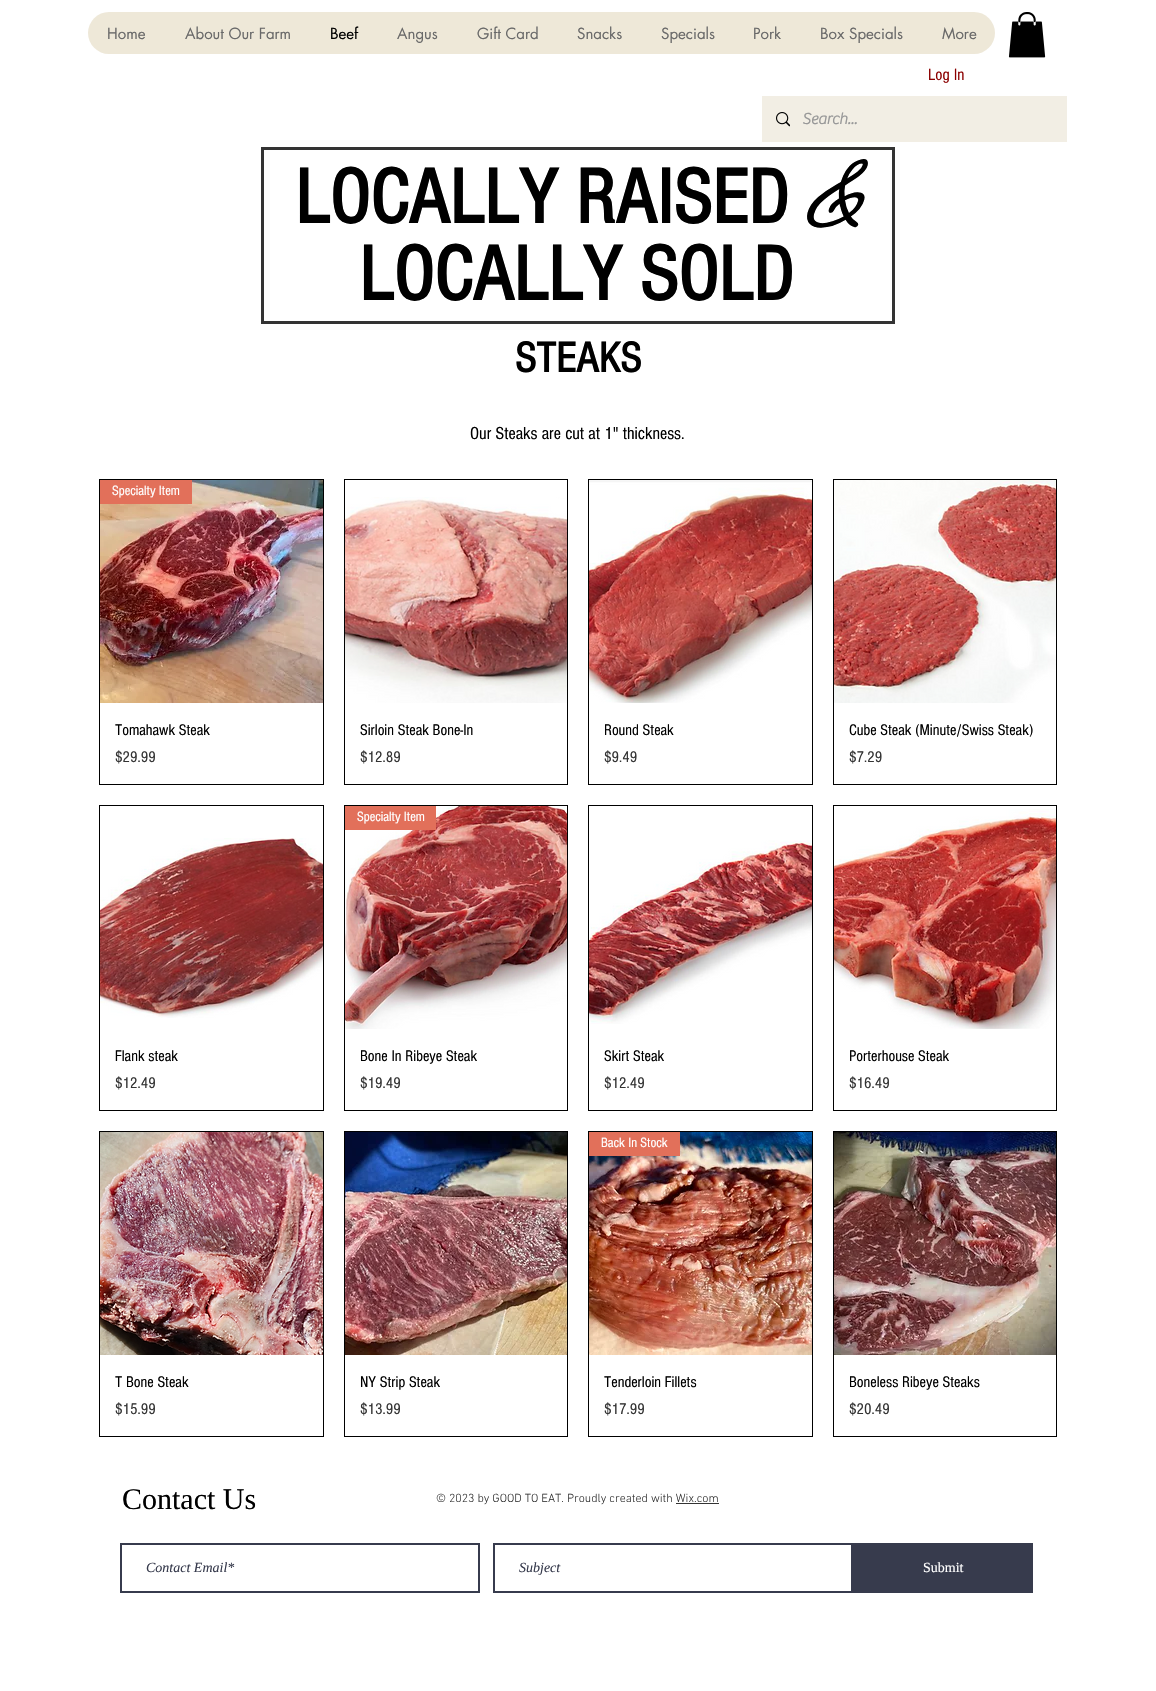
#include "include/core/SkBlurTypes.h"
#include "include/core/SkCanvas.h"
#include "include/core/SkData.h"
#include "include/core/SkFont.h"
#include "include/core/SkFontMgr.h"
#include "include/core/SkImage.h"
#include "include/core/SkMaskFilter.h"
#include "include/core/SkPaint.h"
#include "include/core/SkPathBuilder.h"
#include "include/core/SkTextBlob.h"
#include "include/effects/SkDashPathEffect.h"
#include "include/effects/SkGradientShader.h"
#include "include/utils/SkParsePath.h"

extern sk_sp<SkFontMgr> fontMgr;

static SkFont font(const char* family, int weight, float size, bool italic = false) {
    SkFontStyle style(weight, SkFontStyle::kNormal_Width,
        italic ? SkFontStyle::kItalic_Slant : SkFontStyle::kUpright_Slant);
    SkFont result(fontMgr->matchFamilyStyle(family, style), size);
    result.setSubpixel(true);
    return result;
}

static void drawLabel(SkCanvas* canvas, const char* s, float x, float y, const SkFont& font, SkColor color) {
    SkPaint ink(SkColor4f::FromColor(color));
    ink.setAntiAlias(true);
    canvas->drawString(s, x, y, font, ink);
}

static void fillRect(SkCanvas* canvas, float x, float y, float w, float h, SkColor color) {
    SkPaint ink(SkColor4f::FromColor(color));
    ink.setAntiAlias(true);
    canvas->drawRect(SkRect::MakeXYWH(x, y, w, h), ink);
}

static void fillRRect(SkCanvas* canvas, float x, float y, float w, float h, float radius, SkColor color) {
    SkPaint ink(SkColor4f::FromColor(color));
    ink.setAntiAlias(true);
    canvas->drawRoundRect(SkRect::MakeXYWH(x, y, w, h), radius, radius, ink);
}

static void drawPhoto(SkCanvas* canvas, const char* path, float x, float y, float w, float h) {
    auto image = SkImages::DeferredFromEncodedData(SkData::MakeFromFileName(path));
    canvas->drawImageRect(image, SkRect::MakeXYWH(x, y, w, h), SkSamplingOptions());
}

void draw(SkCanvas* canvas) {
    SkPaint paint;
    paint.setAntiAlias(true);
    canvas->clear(0xFFFFFFFF);
    fillRRect(canvas, 88, 12, 907, 42, 21, 0xFFEEE8D8);
    SkFont font1 = font("futura", 400, 15);
    drawLabel(canvas, "Home", 107, 39, font1, 0xFF696969);
    drawLabel(canvas, "About Our Farm", 185, 39, font1, 0xFF696969);
    drawLabel(canvas, "Beef", 330, 39, font1, 0xFF000000);
    drawLabel(canvas, "Angus", 397, 39, font1, 0xFF696969);
    drawLabel(canvas, "Gift Card", 477, 39, font1, 0xFF696969);
    drawLabel(canvas, "Snacks", 577, 39, font1, 0xFF696969);
    drawLabel(canvas, "Specials", 661, 39, font1, 0xFF696969);
    drawLabel(canvas, "Pork", 753, 39, font1, 0xFF696969);
    drawLabel(canvas, "Box Specials", 820, 39, font1, 0xFF696969);
    drawLabel(canvas, "More", 942, 39, font1, 0xFF696969);
    drawPhoto(canvas, "assets/img1.png", 1008, 12, 38, 46);
    SkFont font2 = font("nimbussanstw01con", 400, 17);
    drawLabel(canvas, "Log In", 928, 80, font2, 0xFF8B0000);
    fillRect(canvas, 762, 96, 305, 46, 0xFFF2EEE4);
    drawPhoto(canvas, "assets/img2.png", 776, 112, 14, 15);
    SkFont font3 = font("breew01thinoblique", 700, 16);
    drawLabel(canvas, "Search...", 802, 124, font3, 0xFF999999);
    paint.setStroke(true);
    paint.setStrokeWidth(3);
    paint.setColor(0xFF333333);
    canvas->drawRect(SkRect::MakeXYWH(262.5f, 148.5f, 631, 174), paint);
    SkFont font4 = font("nimbussanstw01con", 700, 80);
    drawLabel(canvas, "LOCALLY RAISED", 295, 223, font4, 0xFF000000);
    SkFont font5 = font("Mr De Haviland", 700, 90, true);
    drawLabel(canvas, "&", 808, 223, font5, 0xFF000000);
    drawLabel(canvas, "LOCALLY SOLD", 359, 300, font4, 0xFF000000);
    SkFont font6 = font("nimbussanstw01con", 700, 44);
    drawLabel(canvas, "STEAKS", 515, 372, font6, 0xFF000000);
    SkFont font7 = font("nimbussanstw01con", 400, 18);
    drawLabel(canvas, "Our Steaks are cut at 1\" thickness.", 470, 439, font7, 0xFF000000);
    paint.setStrokeWidth(1);
    paint.setColor(0xFF000000);
    canvas->drawRect(SkRect::MakeXYWH(99.5f, 479.5f, 224, 305), paint);
    drawPhoto(canvas, "assets/img3.png", 100, 480, 223, 223);
    fillRect(canvas, 100, 480, 92, 24, 0xFFE2705A);
    SkFont font8 = font("nimbussanstw01con", 400, 14);
    drawLabel(canvas, "Specialty Item", 112, 495, font8, 0xFFFFFFFF);
    SkFont font9 = font("nimbussanstw01con", 400, 16);
    drawLabel(canvas, "Tomahawk Steak", 115, 735, font9, 0xFF000000);
    drawLabel(canvas, "$29.99", 115, 762, font9, 0xFF333333);
    canvas->drawRect(SkRect::MakeXYWH(344.5f, 479.5f, 223, 305), paint);
    drawPhoto(canvas, "assets/img4.png", 345, 497, 222, 206);
    drawLabel(canvas, "Sirloin Steak Bone-In", 360, 735, font9, 0xFF000000);
    drawLabel(canvas, "$12.89", 360, 762, font9, 0xFF333333);
    canvas->drawRect(SkRect::MakeXYWH(588.5f, 479.5f, 224, 305), paint);
    drawPhoto(canvas, "assets/img5.png", 589, 480, 223, 223);
    drawLabel(canvas, "Round Steak", 604, 735, font9, 0xFF000000);
    drawLabel(canvas, "$9.49", 604, 762, font9, 0xFF333333);
    canvas->drawRect(SkRect::MakeXYWH(833.5f, 479.5f, 223, 305), paint);
    drawPhoto(canvas, "assets/img6.png", 834, 480, 222, 223);
    drawLabel(canvas, "Cube Steak (Minute/Swiss Steak)", 849, 735, font9, 0xFF000000);
    drawLabel(canvas, "$7.29", 849, 762, font9, 0xFF333333);
    canvas->drawRect(SkRect::MakeXYWH(99.5f, 805.5f, 224, 305), paint);
    drawPhoto(canvas, "assets/img7.png", 100, 838, 223, 180);
    drawLabel(canvas, "Flank steak", 115, 1061, font9, 0xFF000000);
    drawLabel(canvas, "$12.49", 115, 1088, font9, 0xFF333333);
    canvas->drawRect(SkRect::MakeXYWH(344.5f, 805.5f, 223, 305), paint);
    drawPhoto(canvas, "assets/img8.png", 345, 806, 222, 223);
    fillRect(canvas, 345, 806, 91, 24, 0xFFE2705A);
    drawLabel(canvas, "Specialty Item", 357, 821, font8, 0xFFFFFFFF);
    drawLabel(canvas, "Bone In Ribeye Steak", 360, 1061, font9, 0xFF000000);
    drawLabel(canvas, "$19.49", 360, 1088, font9, 0xFF333333);
    canvas->drawRect(SkRect::MakeXYWH(588.5f, 805.5f, 224, 305), paint);
    drawPhoto(canvas, "assets/img9.png", 589, 840, 223, 184);
    drawLabel(canvas, "Skirt Steak", 604, 1061, font9, 0xFF000000);
    drawLabel(canvas, "$12.49", 604, 1088, font9, 0xFF333333);
    canvas->drawRect(SkRect::MakeXYWH(833.5f, 805.5f, 223, 305), paint);
    drawPhoto(canvas, "assets/img10.png", 834, 809, 222, 220);
    drawLabel(canvas, "Porterhouse Steak", 849, 1061, font9, 0xFF000000);
    drawLabel(canvas, "$16.49", 849, 1088, font9, 0xFF333333);
    canvas->drawRect(SkRect::MakeXYWH(99.5f, 1131.5f, 224, 305), paint);
    drawPhoto(canvas, "assets/img11.png", 100, 1132, 223, 223);
    drawLabel(canvas, "T Bone Steak", 115, 1387, font9, 0xFF000000);
    drawLabel(canvas, "$15.99", 115, 1414, font9, 0xFF333333);
    canvas->drawRect(SkRect::MakeXYWH(344.5f, 1131.5f, 223, 305), paint);
    drawPhoto(canvas, "assets/img12.png", 345, 1132, 222, 223);
    drawLabel(canvas, "NY Strip Steak", 360, 1387, font9, 0xFF000000);
    drawLabel(canvas, "$13.99", 360, 1414, font9, 0xFF333333);
    canvas->drawRect(SkRect::MakeXYWH(588.5f, 1131.5f, 224, 305), paint);
    drawPhoto(canvas, "assets/img13.png", 589, 1132, 223, 223);
    fillRect(canvas, 589, 1132, 91, 24, 0xFFE2705A);
    drawLabel(canvas, "Back In Stock", 601, 1147, font8, 0xFFFFFFFF);
    drawLabel(canvas, "Tenderloin Fillets", 604, 1387, font9, 0xFF000000);
    drawLabel(canvas, "$17.99", 604, 1414, font9, 0xFF333333);
    canvas->drawRect(SkRect::MakeXYWH(833.5f, 1131.5f, 223, 305), paint);
    drawPhoto(canvas, "assets/img14.png", 834, 1132, 222, 223);
    drawLabel(canvas, "Boneless Ribeye Steaks", 849, 1387, font9, 0xFF000000);
    drawLabel(canvas, "$20.49", 849, 1414, font9, 0xFF333333);
    SkFont font10 = font("Liberation Serif", 400, 30);
    drawLabel(canvas, "Contact Us", 122, 1509, font10, 0xFF000000);
    SkFont font11 = font("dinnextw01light", 300, 12);
    drawLabel(canvas, "© 2023 by GOOD TO EAT. Proudly created with Wix.com", 436, 1502, font11, 0xFF333333);
    fillRect(canvas, 676, 1503, 43, 1, 0xFF333333);
    paint.setStrokeWidth(2);
    paint.setColor(0xFF373B4D);
    canvas->drawRect(SkRect::MakeXYWH(121, 1544, 358, 48), paint);
    SkFont font12 = font("Liberation Serif", 400, 14, true);
    drawLabel(canvas, "Contact Email*", 146, 1572, font12, 0xFF373B4D);
    canvas->drawRect(SkRect::MakeXYWH(494, 1544, 358, 48), paint);
    drawLabel(canvas, "Subject", 519, 1572, font12, 0xFF373B4D);
    fillRect(canvas, 853, 1543, 180, 50, 0xFF373B4D);
    SkFont font13 = font("Liberation Serif", 400, 14);
    drawLabel(canvas, "Submit", 923, 1572, font13, 0xFFFFFFFF);
}
